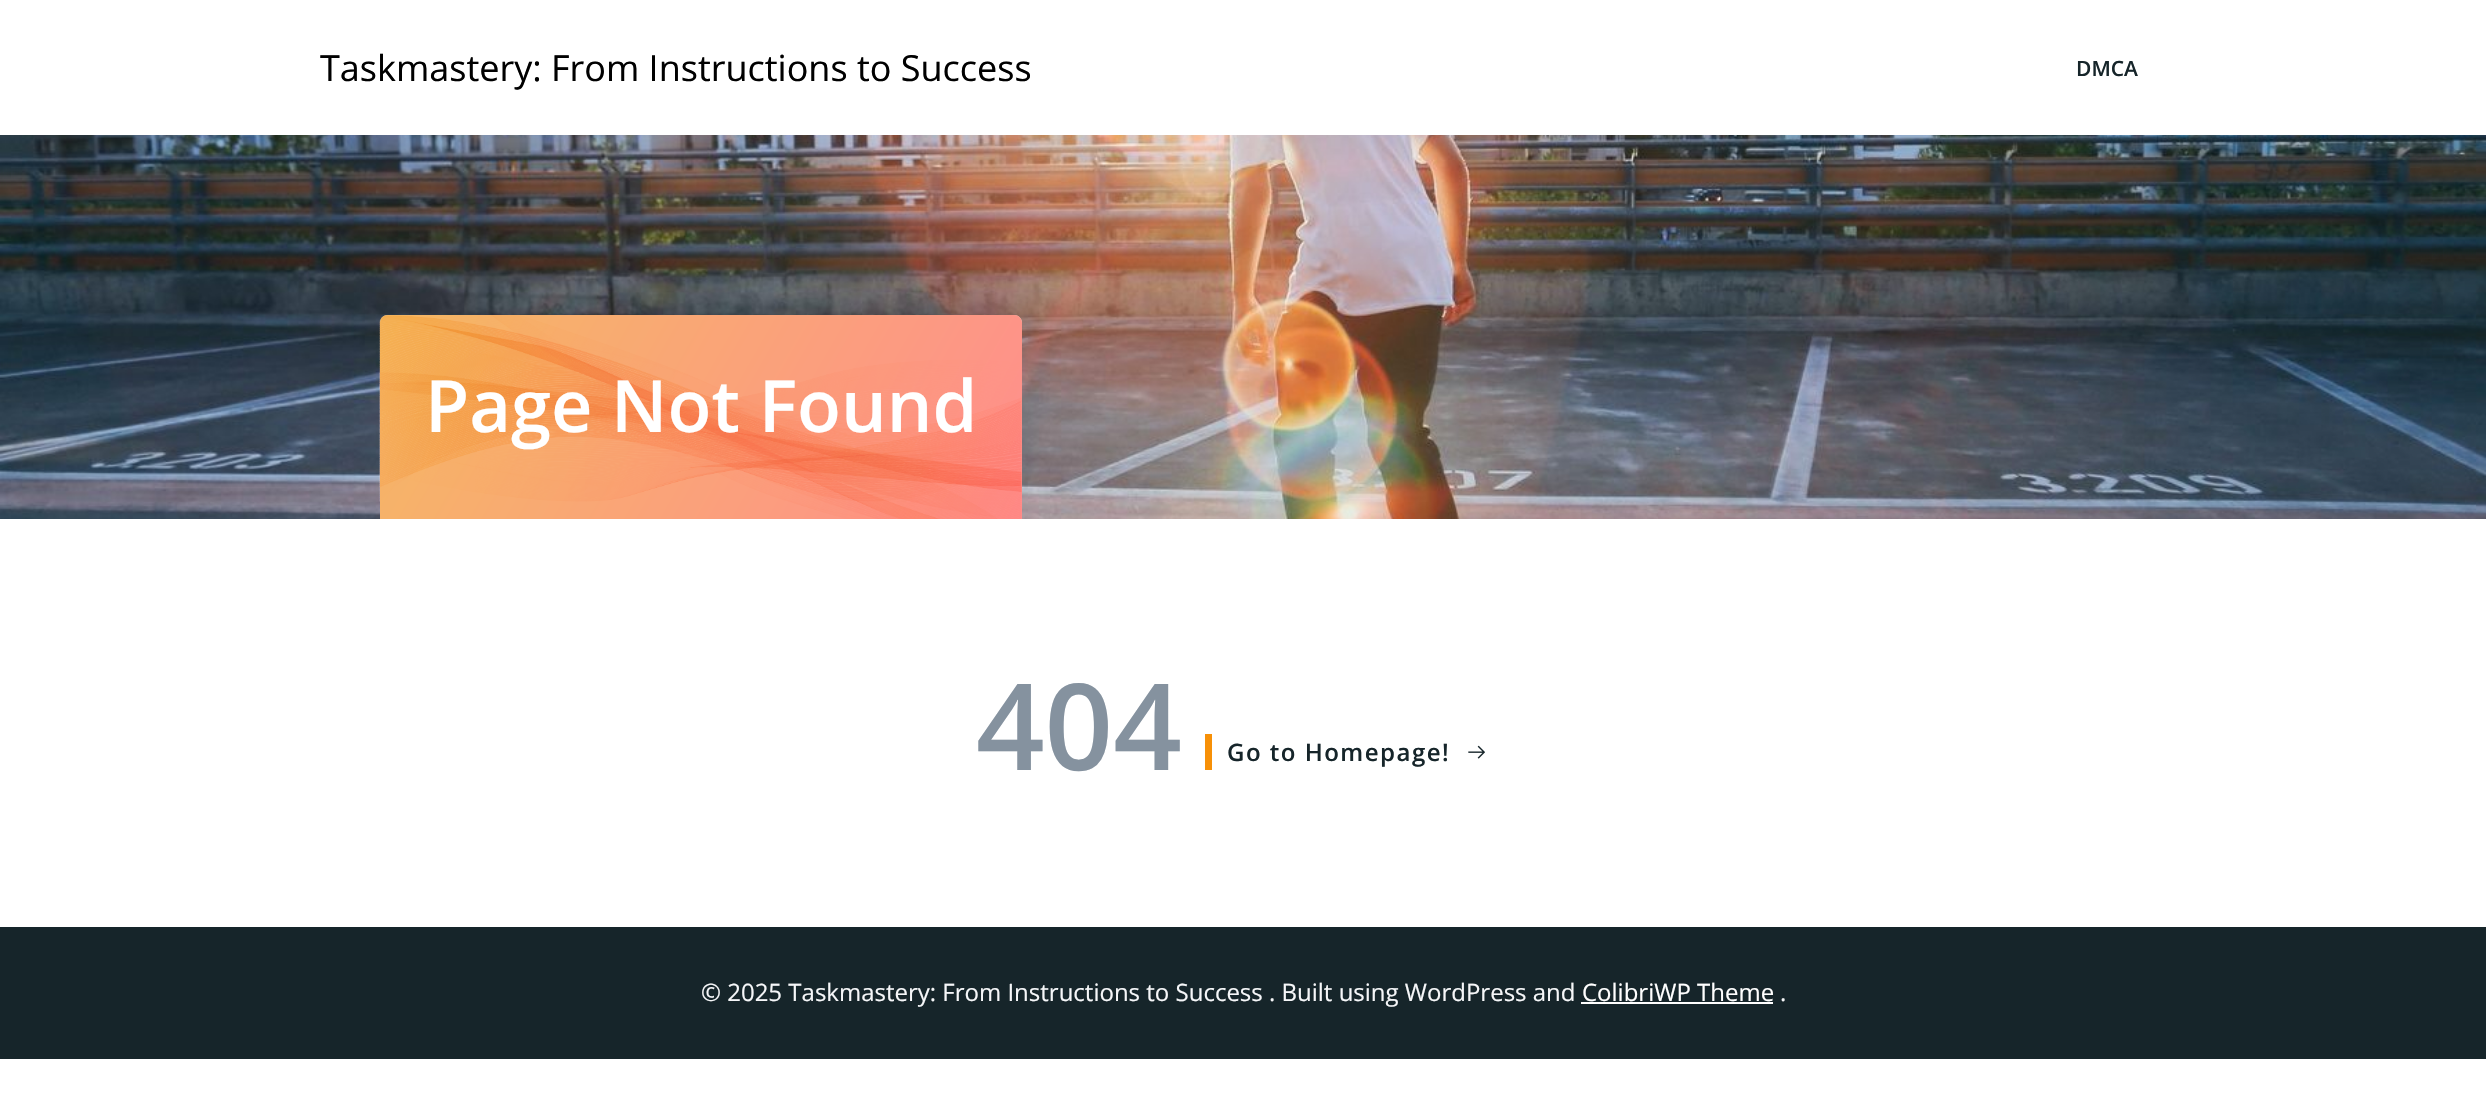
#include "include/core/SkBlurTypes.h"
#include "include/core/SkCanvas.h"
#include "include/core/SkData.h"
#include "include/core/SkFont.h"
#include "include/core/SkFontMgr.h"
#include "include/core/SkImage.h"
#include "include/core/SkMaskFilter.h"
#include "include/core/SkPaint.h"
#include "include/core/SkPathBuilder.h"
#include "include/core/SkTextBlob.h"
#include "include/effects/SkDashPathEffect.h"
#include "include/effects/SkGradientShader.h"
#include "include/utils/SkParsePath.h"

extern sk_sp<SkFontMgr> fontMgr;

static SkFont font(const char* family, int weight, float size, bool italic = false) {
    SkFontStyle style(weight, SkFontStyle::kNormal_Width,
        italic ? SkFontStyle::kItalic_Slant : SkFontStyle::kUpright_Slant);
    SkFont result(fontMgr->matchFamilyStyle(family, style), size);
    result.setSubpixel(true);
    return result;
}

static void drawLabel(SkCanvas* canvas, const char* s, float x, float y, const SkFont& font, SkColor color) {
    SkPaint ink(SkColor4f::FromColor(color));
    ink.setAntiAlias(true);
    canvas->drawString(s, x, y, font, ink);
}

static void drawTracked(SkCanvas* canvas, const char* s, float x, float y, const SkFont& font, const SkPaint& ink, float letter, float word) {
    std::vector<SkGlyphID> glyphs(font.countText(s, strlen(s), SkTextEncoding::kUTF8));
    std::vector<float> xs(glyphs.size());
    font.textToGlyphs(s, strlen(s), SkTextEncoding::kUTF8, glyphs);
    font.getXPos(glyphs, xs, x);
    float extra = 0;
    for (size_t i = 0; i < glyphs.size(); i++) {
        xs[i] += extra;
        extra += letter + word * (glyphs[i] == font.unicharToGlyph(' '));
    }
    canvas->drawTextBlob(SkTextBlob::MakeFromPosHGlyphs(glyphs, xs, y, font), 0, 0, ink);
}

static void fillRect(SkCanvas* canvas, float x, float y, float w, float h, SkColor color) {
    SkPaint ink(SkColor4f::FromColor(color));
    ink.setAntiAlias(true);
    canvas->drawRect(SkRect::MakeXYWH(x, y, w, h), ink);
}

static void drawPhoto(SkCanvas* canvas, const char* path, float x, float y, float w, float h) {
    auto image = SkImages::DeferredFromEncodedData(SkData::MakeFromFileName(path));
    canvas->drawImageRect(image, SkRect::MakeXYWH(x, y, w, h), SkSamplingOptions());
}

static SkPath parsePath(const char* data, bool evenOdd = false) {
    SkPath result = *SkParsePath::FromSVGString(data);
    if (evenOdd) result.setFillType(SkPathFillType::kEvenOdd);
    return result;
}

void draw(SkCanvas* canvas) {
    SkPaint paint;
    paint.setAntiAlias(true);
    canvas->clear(0xFFFFFFFF);
    SkFont font1 = font("Open Sans", 400, 36);
    drawLabel(canvas, "Taskmastery: From Instructions to Success", 320, 81, font1, 0xFF000000);
    SkFont font2 = font("Open Sans", 600, 21);
    drawLabel(canvas, "DMCA", 2076, 76, font2, 0xFF16252A);
    drawPhoto(canvas, "assets/img1.png", 0, 135, 2486, 384);
    paint.setColor(0xFFFFFFFF);
    canvas->drawPath(parsePath("M388 315H1014C1018.5 315 1022 318.5 1022 323V519H380V323C380 318.5 383.5 315 388 315Z"), paint);
    drawPhoto(canvas, "assets/img2.png", 379, 315, 643, 204);
    {
        const SkColor colors[] = {0xADFF5858, 0xADF09819};
        const float stops[] = {0, 1};
        const SkPoint ends[] = {{987, 582}, {414, 252}};
        paint.setShader(SkGradientShader::MakeLinear(ends, colors, stops, 2, SkTileMode::kClamp));
        paint.setAlpha(255);
    }
    canvas->drawPath(parsePath("M388 315H1014C1018.5 315 1022 318.5 1022 323V519H380V323C380 318.5 383.5 315 388 315Z"), paint);
    SkFont font3 = font("Open Sans", 600, 72);
    drawLabel(canvas, "Page Not Found", 425, 432, font3, 0xFFFFFFFF);
    SkFont font4 = font("Open Sans", 600, 120);
    drawLabel(canvas, "404", 976, 770, font4, 0xFF85929F);
    fillRect(canvas, 1205, 734, 7, 36, 0xFFF79007);
    SkFont font5 = font("Open Sans", 600, 24);
    paint.setShader(nullptr);
    paint.setColor(0xFF16252A);
    drawTracked(canvas, "Go to Homepage!", 1227, 761, font5, paint, 1.5f, 0);
    drawPhoto(canvas, "assets/img3.png", 1468, 745, 17, 14);
    fillRect(canvas, 0, 927, 2486, 132, 0xFF16252A);
    SkFont font6 = font("Open Sans", 400, 24);
    drawLabel(canvas, "© 2025 Taskmastery: From Instructions to Success . Built using WordPress and", 701, 1001, font6, 0xFFF6F7F9);
    drawLabel(canvas, "ColibriWP Theme", 1582, 1001, font6, 0xFFFFFFFF);
    fillRect(canvas, 1581, 1002, 192, 2, 0xFFFFFFFF);
    drawLabel(canvas, ".", 1780, 1001, font6, 0xFFF6F7F9);
}
